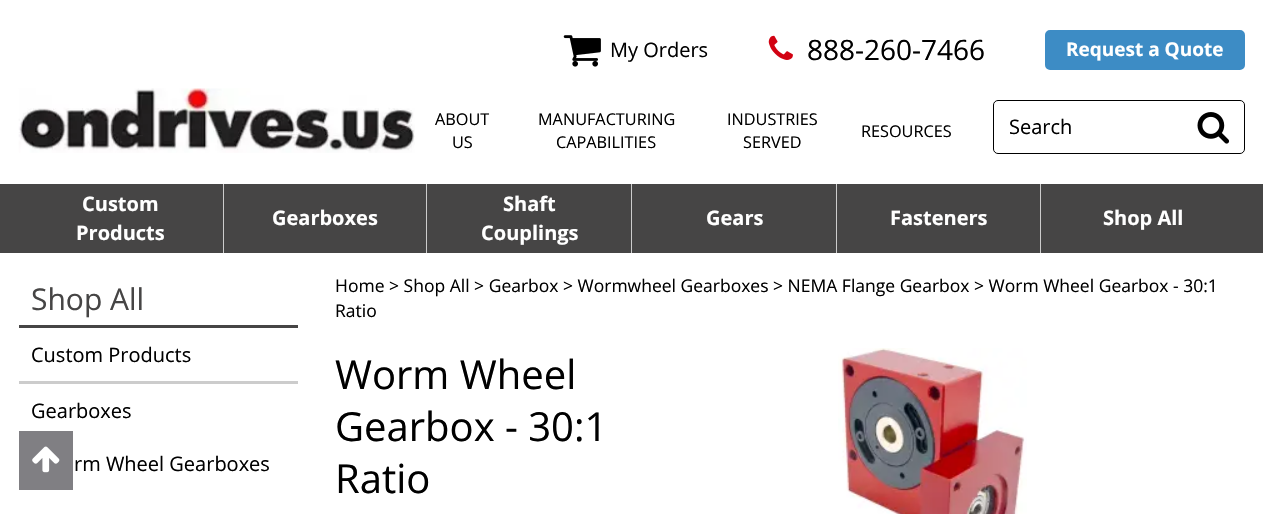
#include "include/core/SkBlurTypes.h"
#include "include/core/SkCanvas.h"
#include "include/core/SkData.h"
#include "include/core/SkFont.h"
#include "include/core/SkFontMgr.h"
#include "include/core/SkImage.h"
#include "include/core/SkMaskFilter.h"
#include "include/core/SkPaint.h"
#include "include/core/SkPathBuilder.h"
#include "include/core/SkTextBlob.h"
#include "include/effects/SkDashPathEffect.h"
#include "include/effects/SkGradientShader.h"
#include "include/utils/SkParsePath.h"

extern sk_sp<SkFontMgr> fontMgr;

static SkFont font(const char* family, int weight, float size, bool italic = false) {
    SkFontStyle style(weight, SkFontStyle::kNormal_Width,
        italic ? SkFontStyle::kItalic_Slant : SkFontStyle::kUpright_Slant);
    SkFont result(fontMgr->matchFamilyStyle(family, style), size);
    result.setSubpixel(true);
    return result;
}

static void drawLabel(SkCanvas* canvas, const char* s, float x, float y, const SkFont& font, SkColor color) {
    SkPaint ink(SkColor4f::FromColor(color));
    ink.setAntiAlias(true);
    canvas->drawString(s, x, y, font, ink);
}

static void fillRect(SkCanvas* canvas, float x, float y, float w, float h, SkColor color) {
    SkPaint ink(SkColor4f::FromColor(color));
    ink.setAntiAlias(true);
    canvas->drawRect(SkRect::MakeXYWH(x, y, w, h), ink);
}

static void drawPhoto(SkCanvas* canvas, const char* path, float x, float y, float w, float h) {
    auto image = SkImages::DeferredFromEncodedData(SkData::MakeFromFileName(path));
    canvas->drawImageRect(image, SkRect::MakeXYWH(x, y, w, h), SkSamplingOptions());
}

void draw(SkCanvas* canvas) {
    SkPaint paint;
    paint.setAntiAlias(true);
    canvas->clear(0xFFFFFFFF);
    drawPhoto(canvas, "assets/img1.png", 18, 88, 397, 65);
    drawPhoto(canvas, "assets/img2.png", 563, 35, 38, 32);
    SkFont font1 = font("Open Sans", 400, 20);
    drawLabel(canvas, "My Orders", 610, 57, font1, 0xFF000000);
    drawPhoto(canvas, "assets/img3.png", 768, 35, 25, 25);
    SkFont font2 = font("Open Sans", 400, 28);
    drawLabel(canvas, "888-260-7466", 807, 60, font2, 0xFF000000);
    paint.setColor(0xFF3D8CC5);
    canvas->drawRoundRect(SkRect::MakeXYWH(1046.5f, 31.5f, 197, 37), 3.5f, 3.5f, paint);
    paint.setStroke(true);
    paint.setStrokeWidth(3);
    canvas->drawRoundRect(SkRect::MakeXYWH(1046.5f, 31.5f, 197, 37), 3.5f, 3.5f, paint);
    SkFont font3 = font("Open Sans", 700, 19);
    drawLabel(canvas, "Request a Quote", 1066, 56, font3, 0xFFFFFFFF);
    SkFont font4 = font("Open Sans", 400, 16.25f);
    drawLabel(canvas, "ABOUT", 435, 125, font4, 0xFF000000);
    drawLabel(canvas, "US", 452, 148, font4, 0xFF000000);
    drawLabel(canvas, "MANUFACTURING", 538, 125, font4, 0xFF000000);
    drawLabel(canvas, "CAPABILITIES", 556, 148, font4, 0xFF000000);
    drawLabel(canvas, "INDUSTRIES", 727, 125, font4, 0xFF000000);
    drawLabel(canvas, "SERVED", 743, 148, font4, 0xFF000000);
    drawLabel(canvas, "RESOURCES", 861, 137, font4, 0xFF000000);
    paint.setStrokeWidth(1);
    paint.setColor(0xFF000000);
    canvas->drawRoundRect(SkRect::MakeXYWH(993.5f, 100.5f, 251, 53), 4.5f, 4.5f, paint);
    drawLabel(canvas, "Search", 1009, 134, font1, 0xFF000000);
    drawPhoto(canvas, "assets/img4.png", 1197, 112, 33, 32);
    fillRect(canvas, 0, 184, 1263, 69, 0xFF464545);
    SkFont font5 = font("Open Sans", 700, 20);
    drawLabel(canvas, "Custom", 82, 211, font5, 0xFFFFFFFF);
    drawLabel(canvas, "Products", 76, 240, font5, 0xFFFFFFFF);
    fillRect(canvas, 223, 184, 1, 69, 0xFFCCCCCC);
    drawLabel(canvas, "Gearboxes", 272, 225, font5, 0xFFFFFFFF);
    fillRect(canvas, 426, 184, 1, 69, 0xFFCCCCCC);
    drawLabel(canvas, "Shaft", 503, 211, font5, 0xFFFFFFFF);
    drawLabel(canvas, "Couplings", 481, 240, font5, 0xFFFFFFFF);
    fillRect(canvas, 631, 184, 1, 69, 0xFFCCCCCC);
    drawLabel(canvas, "Gears", 706, 225, font5, 0xFFFFFFFF);
    fillRect(canvas, 836, 184, 1, 69, 0xFFCCCCCC);
    drawLabel(canvas, "Fasteners", 890, 225, font5, 0xFFFFFFFF);
    fillRect(canvas, 1040, 184, 1, 69, 0xFFCCCCCC);
    drawLabel(canvas, "Shop All", 1103, 225, font5, 0xFFFFFFFF);
    fillRect(canvas, 19, 325, 279, 3, 0xFF464545);
    SkFont font6 = font("Open Sans", 400, 30);
    drawLabel(canvas, "Shop All", 31, 310, font6, 0xFF464545);
    fillRect(canvas, 19, 381, 279, 3, 0xFFCCCCCC);
    drawLabel(canvas, "Custom Products", 31, 362, font1, 0xFF000000);
    drawLabel(canvas, "Gearboxes", 31, 418, font1, 0xFF000000);
    drawLabel(canvas, "rm Wheel Gearboxes", 74, 471, font1, 0xFF000000);
    SkFont font7 = font("Open Sans", 400, 17.5f);
    drawLabel(canvas, "Home > Shop All > Gearbox > Wormwheel Gearboxes > NEMA Flange Gearbox > Worm Wheel Gearbox - 30:1", 335, 292, font7, 0xFF000000);
    drawLabel(canvas, "Ratio", 335, 317, font7, 0xFF000000);
    SkFont font8 = font("Open Sans", 400, 40);
    drawLabel(canvas, "Worm Wheel", 335, 389, font8, 0xFF000000);
    drawLabel(canvas, "Gearbox - 30:1", 335, 441, font8, 0xFF000000);
    drawLabel(canvas, "Ratio", 335, 493, font8, 0xFF000000);
    drawPhoto(canvas, "assets/img5.png", 838, 348, 189, 166);
    fillRect(canvas, 19, 431, 54, 59, 0xFF807F83);
    drawPhoto(canvas, "assets/img6.png", 32, 446, 28, 27);
}
